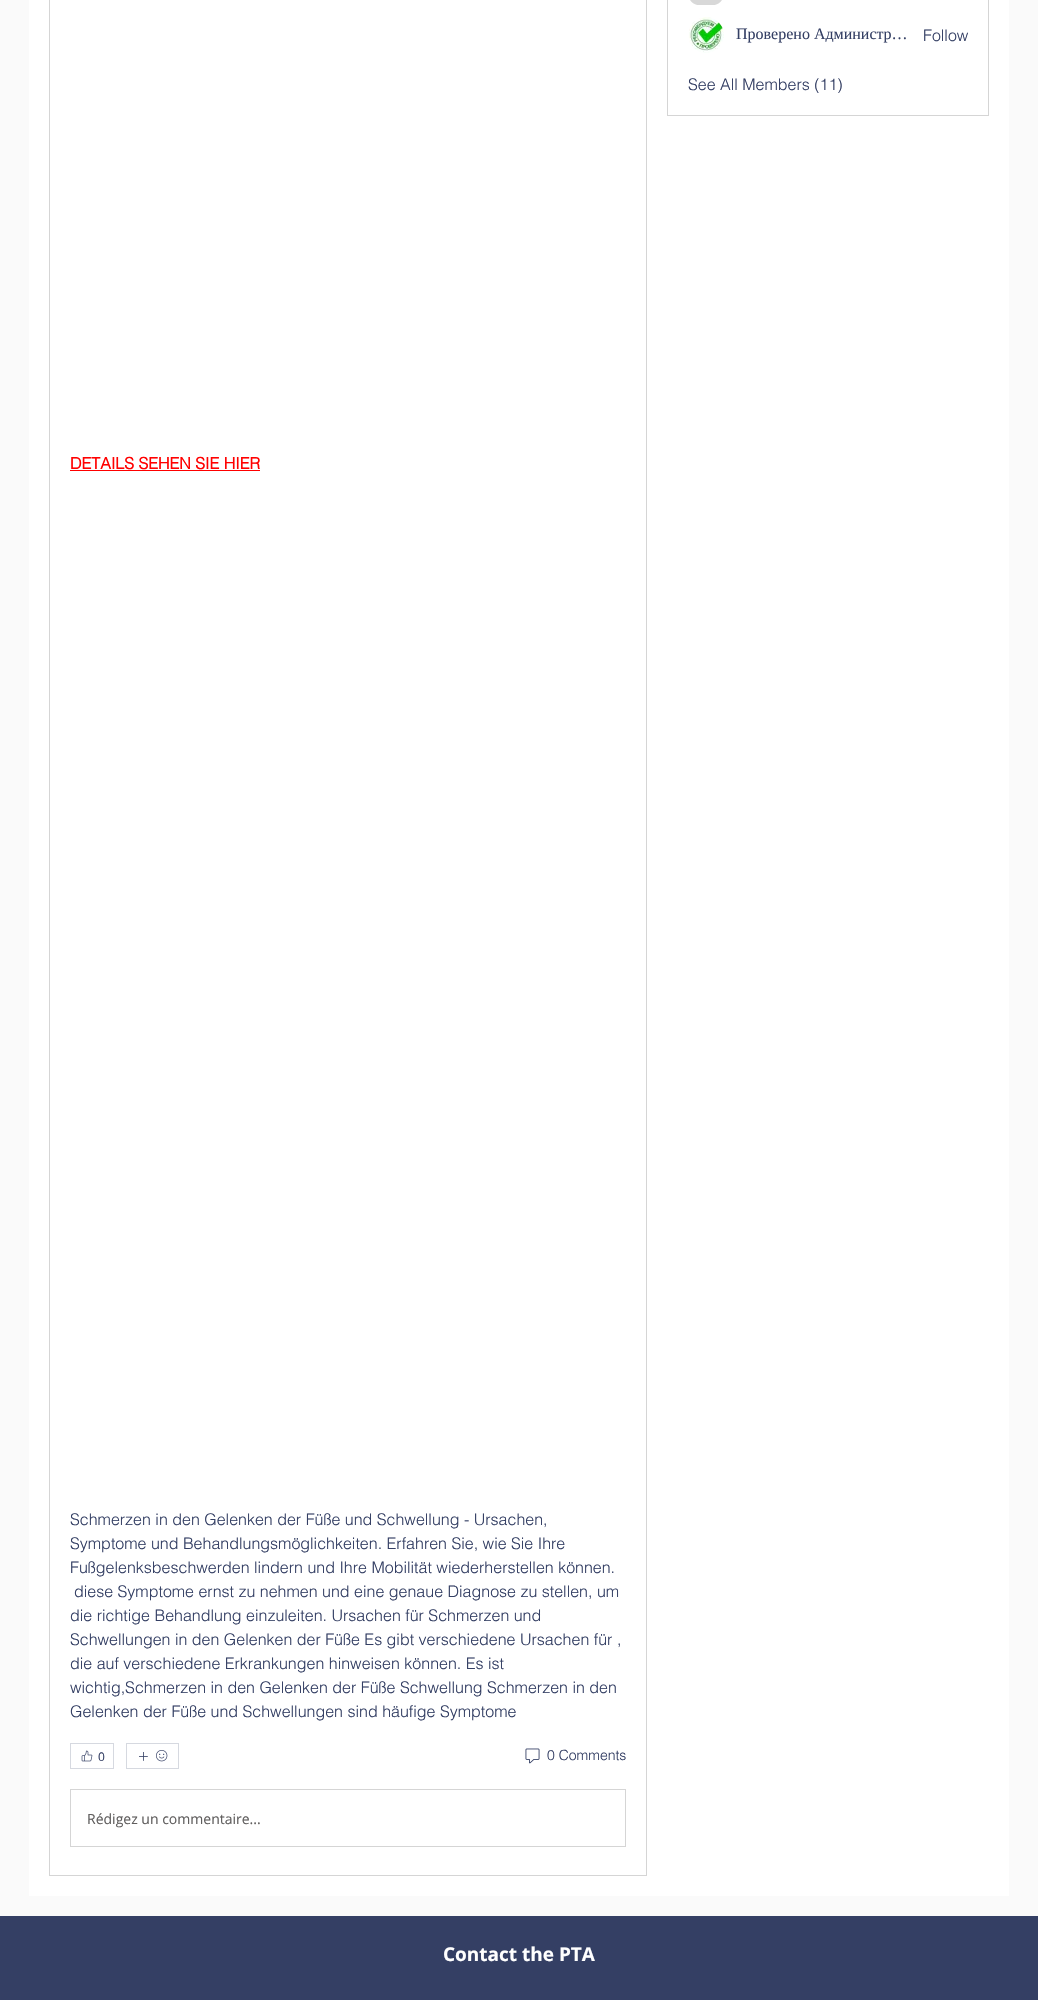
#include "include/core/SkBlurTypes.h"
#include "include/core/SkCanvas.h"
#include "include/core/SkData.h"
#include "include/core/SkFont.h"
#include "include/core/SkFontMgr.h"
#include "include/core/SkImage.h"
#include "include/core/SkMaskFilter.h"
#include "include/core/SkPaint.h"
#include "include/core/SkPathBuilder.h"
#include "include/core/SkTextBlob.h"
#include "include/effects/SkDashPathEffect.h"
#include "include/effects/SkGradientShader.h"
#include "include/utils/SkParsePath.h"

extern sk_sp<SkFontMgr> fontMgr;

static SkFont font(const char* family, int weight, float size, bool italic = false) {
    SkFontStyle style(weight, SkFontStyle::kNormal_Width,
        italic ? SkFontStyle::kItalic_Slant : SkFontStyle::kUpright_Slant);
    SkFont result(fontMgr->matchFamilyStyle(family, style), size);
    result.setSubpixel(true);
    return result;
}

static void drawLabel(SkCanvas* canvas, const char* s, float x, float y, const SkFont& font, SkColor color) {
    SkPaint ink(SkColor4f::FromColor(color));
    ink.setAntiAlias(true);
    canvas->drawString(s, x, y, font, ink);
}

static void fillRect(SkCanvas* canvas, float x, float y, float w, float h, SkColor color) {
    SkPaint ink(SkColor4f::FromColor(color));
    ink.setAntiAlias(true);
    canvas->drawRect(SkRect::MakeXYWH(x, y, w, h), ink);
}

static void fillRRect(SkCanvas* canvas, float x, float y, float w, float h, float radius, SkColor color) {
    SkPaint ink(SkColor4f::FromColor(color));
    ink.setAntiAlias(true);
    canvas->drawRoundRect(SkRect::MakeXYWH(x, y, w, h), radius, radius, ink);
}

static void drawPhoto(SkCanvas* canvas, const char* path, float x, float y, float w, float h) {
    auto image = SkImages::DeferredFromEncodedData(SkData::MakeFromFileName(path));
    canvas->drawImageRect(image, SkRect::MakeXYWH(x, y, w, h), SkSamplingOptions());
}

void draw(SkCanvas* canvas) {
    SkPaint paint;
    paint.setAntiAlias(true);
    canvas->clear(0xFFFAFAFA);
    fillRect(canvas, 29, 0, 980, 1896, 0xFFFFFFFF);
    paint.setStroke(true);
    paint.setStrokeWidth(1);
    paint.setColor(0xFFD5D5D5);
    canvas->drawRect(SkRect::MakeXYWH(667.5f, -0.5f, 321, 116), paint);
    fillRRect(canvas, 688, -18, 36, 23, 18, 0xFFD8D8D8);
    drawPhoto(canvas, "assets/img1.png", 688, 17, 36, 36);
    SkFont font1 = font("Liberation Serif", 400, 16);
    drawLabel(canvas, "Проверено Администр…", 736, 39, font1, 0xFF343F64);
    SkFont font2 = font("helvetica", 300, 16);
    drawLabel(canvas, "Follow", 923, 41, font2, 0xFF343F64);
    drawLabel(canvas, "See All Members (11)", 688, 90, font2, 0xFF343F64);
    canvas->drawRect(SkRect::MakeXYWH(49.5f, -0.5f, 597, 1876), paint);
    SkFont font3 = font("helvetica", 700, 16);
    drawLabel(canvas, "DETAILS SEHEN SIE HIER", 70, 469, font3, 0xFFFF0000);
    fillRect(canvas, 70, 470, 190, 1, 0xFFFF0000);
    drawLabel(canvas, "Schmerzen in den Gelenken der Füße und Schwellung - Ursachen,", 70, 1525, font2, 0xFF343F64);
    drawLabel(canvas, "Symptome und Behandlungsmöglichkeiten. Erfahren Sie, wie Sie Ihre", 70, 1549, font2, 0xFF343F64);
    drawLabel(canvas, "Fußgelenksbeschwerden lindern und Ihre Mobilität wiederherstellen können.", 70, 1573, font2, 0xFF343F64);
    drawLabel(canvas, "diese Symptome ernst zu nehmen und eine genaue Diagnose zu stellen, um", 74, 1597, font2, 0xFF343F64);
    drawLabel(canvas, "die richtige Behandlung einzuleiten. Ursachen für Schmerzen und", 70, 1621, font2, 0xFF343F64);
    drawLabel(canvas, "Schwellungen in den Gelenken der Füße Es gibt verschiedene Ursachen für ,", 70, 1645, font2, 0xFF343F64);
    drawLabel(canvas, "die auf verschiedene Erkrankungen hinweisen können. Es ist", 70, 1669, font2, 0xFF343F64);
    drawLabel(canvas, "wichtig,Schmerzen in den Gelenken der Füße Schwellung Schmerzen in den", 70, 1693, font2, 0xFF343F64);
    drawLabel(canvas, "Gelenken der Füße und Schwellungen sind häufige Symptome", 70, 1717, font2, 0xFF343F64);
    paint.setColor(0xFFD6D9E0);
    canvas->drawRect(SkRect::MakeXYWH(70.5f, 1743.5f, 43, 25), paint);
    drawPhoto(canvas, "assets/img2.png", 81, 1750, 12, 12);
    SkFont font4 = font("Open Sans", 400, 12);
    drawLabel(canvas, "0", 98, 1761, font4, 0xFF343F64);
    canvas->drawRect(SkRect::MakeXYWH(126.5f, 1743.5f, 52, 25), paint);
    drawPhoto(canvas, "assets/img3.png", 139, 1752, 9, 9);
    drawPhoto(canvas, "assets/img4.png", 156, 1750, 12, 12);
    drawPhoto(canvas, "assets/img5.png", 525, 1748, 15, 16);
    SkFont font5 = font("helvetica", 300, 14);
    drawLabel(canvas, "0 Comments", 547, 1760, font5, 0xFF343F64);
    paint.setColor(0xFFD5D5D5);
    canvas->drawRect(SkRect::MakeXYWH(70.5f, 1789.5f, 555, 57), paint);
    SkFont font6 = font("Open Sans", 400, 14);
    drawLabel(canvas, "Rédigez un commentaire...", 87, 1824, font6, 0xFF605E5E);
    fillRect(canvas, 0, 1916, 1038, 84, 0xFF343F64);
    SkFont font7 = font("Open Sans", 700, 19);
    drawLabel(canvas, "Contact the PTA", 443, 1961, font7, 0xFFFFFFFF);
}
